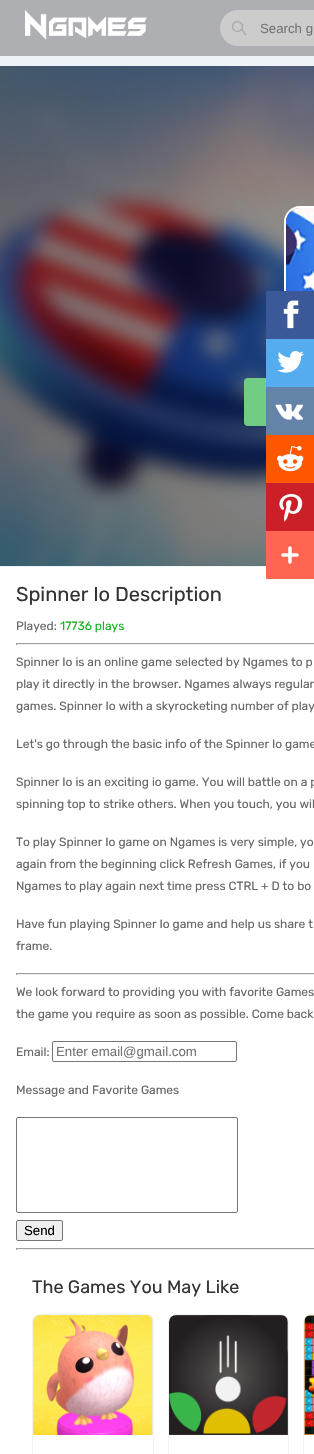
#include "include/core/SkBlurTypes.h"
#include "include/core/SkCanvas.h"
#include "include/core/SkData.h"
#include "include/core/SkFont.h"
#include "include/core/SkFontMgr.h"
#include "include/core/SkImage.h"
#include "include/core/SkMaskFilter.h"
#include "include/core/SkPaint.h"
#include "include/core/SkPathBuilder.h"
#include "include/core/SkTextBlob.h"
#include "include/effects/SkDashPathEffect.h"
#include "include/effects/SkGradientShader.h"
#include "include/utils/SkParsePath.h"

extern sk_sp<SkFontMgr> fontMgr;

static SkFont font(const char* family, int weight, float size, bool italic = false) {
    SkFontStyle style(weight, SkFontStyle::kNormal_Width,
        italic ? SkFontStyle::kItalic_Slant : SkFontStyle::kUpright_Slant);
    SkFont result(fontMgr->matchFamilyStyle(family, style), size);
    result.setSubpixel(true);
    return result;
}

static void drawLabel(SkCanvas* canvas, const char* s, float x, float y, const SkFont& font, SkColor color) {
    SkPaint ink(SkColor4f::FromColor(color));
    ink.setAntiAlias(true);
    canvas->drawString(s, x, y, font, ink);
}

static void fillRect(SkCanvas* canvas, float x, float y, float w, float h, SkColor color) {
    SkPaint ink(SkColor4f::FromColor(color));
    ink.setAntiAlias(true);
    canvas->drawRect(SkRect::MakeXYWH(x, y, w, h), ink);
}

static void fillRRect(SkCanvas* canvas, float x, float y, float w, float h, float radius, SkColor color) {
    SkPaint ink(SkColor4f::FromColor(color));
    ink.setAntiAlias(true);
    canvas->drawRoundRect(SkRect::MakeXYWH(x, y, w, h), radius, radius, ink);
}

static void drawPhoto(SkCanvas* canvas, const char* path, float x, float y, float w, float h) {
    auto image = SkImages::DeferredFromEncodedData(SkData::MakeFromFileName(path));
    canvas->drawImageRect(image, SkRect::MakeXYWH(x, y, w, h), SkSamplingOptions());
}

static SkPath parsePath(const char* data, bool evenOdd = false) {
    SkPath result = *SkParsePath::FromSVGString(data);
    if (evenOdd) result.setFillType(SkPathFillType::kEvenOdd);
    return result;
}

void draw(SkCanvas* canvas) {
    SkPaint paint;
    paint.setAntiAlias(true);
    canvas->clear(0xFFEDF3F7);
    fillRect(canvas, 0, 0, 314, 56, 0xFFADAFB3);
    drawPhoto(canvas, "assets/img1.png", 25, 10, 122, 30);
    fillRRect(canvas, 220, 10, 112, 36, 18, 0xFFCCCCCC);
    paint.setStroke(true);
    paint.setStrokeWidth(1.5f);
    paint.setColor(0xFFACACAC);
    canvas->drawCircle(237.5f, 26.5f, 5, paint);
    paint.setStrokeCap(SkPaint::kSquare_Cap);
    canvas->drawPath(parsePath("M242 30L245.5 34.5"), paint);
    SkFont font1 = font("Liberation Sans", 400, 13.25f);
    drawLabel(canvas, "Search g", 260, 33, font1, 0xFF757575);
    drawPhoto(canvas, "assets/img8.png", 0, 66, 314, 500);
    paint.setStrokeWidth(2);
    paint.setStrokeCap(SkPaint::kButt_Cap);
    paint.setColor(0xFFFFFFFF);
    canvas->drawRoundRect(SkRect::MakeXYWH(285, 207, 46, 118), 15, 15, paint);
    fillRect(canvas, 266, 291, 48, 48, 0xFF3B5998);
    drawPhoto(canvas, "assets/img2.png", 283, 300, 16, 29);
    fillRRect(canvas, 244, 378, 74, 48, 4, 0xFF6FCD84);
    fillRect(canvas, 266, 339, 48, 48, 0xFF55ACEE);
    drawPhoto(canvas, "assets/img3.png", 277, 351, 27, 22);
    fillRect(canvas, 266, 387, 48, 48, 0xFF6383A8);
    drawPhoto(canvas, "assets/img4.png", 275, 404, 28, 16);
    fillRect(canvas, 266, 435, 48, 48, 0xFFFF5700);
    drawPhoto(canvas, "assets/img5.png", 277, 446, 27, 26);
    fillRect(canvas, 266, 483, 48, 48, 0xFFCB2027);
    drawPhoto(canvas, "assets/img6.png", 279, 494, 24, 28);
    fillRect(canvas, 0, 567, 314, 887, 0xFFFFFFFF);
    fillRect(canvas, 266, 531, 48, 48, 0xFFFF6550);
    drawPhoto(canvas, "assets/img7.png", 281, 546, 18, 18);
    drawPhoto(canvas, "assets/img9.png", 286, 208, 28, 83);
    SkFont font2 = font("Rubik", 300, 20);
    drawLabel(canvas, "Spinner Io Description", 16, 601, font2, 0xFF333333);
    SkFont font3 = font("Rubik", 300, 12);
    drawLabel(canvas, "Played:", 16, 630, font3, 0xFF666666);
    drawLabel(canvas, "17736 plays", 60, 630, font3, 0xFF14B21D);
    fillRect(canvas, 16, 643, 298, 1, 0xFF9F9F9F);
    fillRect(canvas, 16, 644, 298, 1, 0xFFEEEEEE);
    fillRect(canvas, 16, 643, 1, 2, 0xFF9F9F9F);
    drawLabel(canvas, "Spinner Io is an online game selected by Ngames to p", 16, 666, font3, 0xFF666666);
    drawLabel(canvas, "play it directly in the browser. Ngames always regular", 16, 688, font3, 0xFF666666);
    drawLabel(canvas, "games. Spinner Io with a skyrocketing number of play", 16, 710, font3, 0xFF666666);
    drawLabel(canvas, "Let's go through the basic info of the Spinner Io game", 16, 748, font3, 0xFF666666);
    drawLabel(canvas, "Spinner Io is an exciting io game. You will battle on a p", 16, 786, font3, 0xFF666666);
    drawLabel(canvas, "spinning top to strike others. When you touch, you wil", 16, 808, font3, 0xFF666666);
    drawLabel(canvas, "To play Spinner Io game on Ngames is very simple, yo", 16, 846, font3, 0xFF666666);
    drawLabel(canvas, "again from the beginning click Refresh Games, if you", 16, 868, font3, 0xFF666666);
    drawLabel(canvas, "Ngames to play again next time press CTRL + D to bo", 16, 890, font3, 0xFF666666);
    drawLabel(canvas, "Have fun playing Spinner Io game and help us share t", 16, 928, font3, 0xFF666666);
    drawLabel(canvas, "frame.", 16, 950, font3, 0xFF666666);
    fillRect(canvas, 16, 973, 298, 1, 0xFF9F9F9F);
    fillRect(canvas, 16, 974, 298, 1, 0xFFEEEEEE);
    fillRect(canvas, 16, 973, 1, 2, 0xFF9F9F9F);
    drawLabel(canvas, "We look forward to providing you with favorite Games", 16, 996, font3, 0xFF666666);
    drawLabel(canvas, "the game you require as soon as possible. Come back", 16, 1018, font3, 0xFF666666);
    drawLabel(canvas, "Email:", 16, 1056, font3, 0xFF666666);
    paint.setStrokeWidth(1);
    paint.setColor(0xFF767676);
    canvas->drawRoundRect(SkRect::MakeXYWH(52.5f, 1041.5f, 184, 20), 1.5f, 1.5f, paint);
    drawLabel(canvas, "Enter email@gmail.com", 56, 1056, font1, 0xFF757575);
    drawLabel(canvas, "Message and Favorite Games", 16, 1094, font3, 0xFF666666);
    canvas->drawRoundRect(SkRect::MakeXYWH(16.5f, 1117.5f, 221, 95), 1.5f, 1.5f, paint);
    paint.setStroke(false);
    paint.setColor(0xFFEFEFEF);
    canvas->drawRoundRect(SkRect::MakeXYWH(16.5f, 1220.5f, 46, 20), 1.5f, 1.5f, paint);
    paint.setStroke(true);
    paint.setColor(0xFF767676);
    canvas->drawRoundRect(SkRect::MakeXYWH(16.5f, 1220.5f, 46, 20), 1.5f, 1.5f, paint);
    drawLabel(canvas, "Send", 24, 1235, font1, 0xFF000000);
    fillRect(canvas, 16, 1248, 298, 1, 0xFF9F9F9F);
    fillRect(canvas, 16, 1249, 298, 1, 0xFFEEEEEE);
    fillRect(canvas, 16, 1248, 1, 2, 0xFF9F9F9F);
    SkFont font4 = font("Rubik", 300, 18);
    drawLabel(canvas, "The Games You May Like", 32, 1293, font4, 0xFF333333);
    paint.setColor(0xFFEDF3F7);
    canvas->drawRoundRect(SkRect::MakeXYWH(32.5f, 1314.5f, 121, 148), 7.5f, 7.5f, paint);
    paint.setStroke(false);
    paint.setColor(0xFFE9EFF2);
    canvas->drawPath(parsePath("M40 1315H146C150 1315 153 1318 153 1322V1435H33V1322C33 1318 36 1315 40 1315Z"), paint);
    drawPhoto(canvas, "assets/img10.png", 33, 1315, 120, 120);
    paint.setStroke(true);
    paint.setColor(0xFFEDF3F7);
    canvas->drawRoundRect(SkRect::MakeXYWH(168.5f, 1314.5f, 120, 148), 7.5f, 7.5f, paint);
    drawPhoto(canvas, "assets/img11.png", 169, 1315, 119, 120);
    canvas->drawRoundRect(SkRect::MakeXYWH(303.5f, 1314.5f, 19, 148), 7.5f, 7.5f, paint);
    paint.setStroke(false);
    paint.setColor(0xFFE9EFF2);
    canvas->drawPath(parsePath("M311 1315H314C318 1315 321 1318 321 1322V1435H304V1322C304 1318 307 1315 311 1315Z"), paint);
    drawPhoto(canvas, "assets/img12.png", 304, 1315, 10, 120);
}
